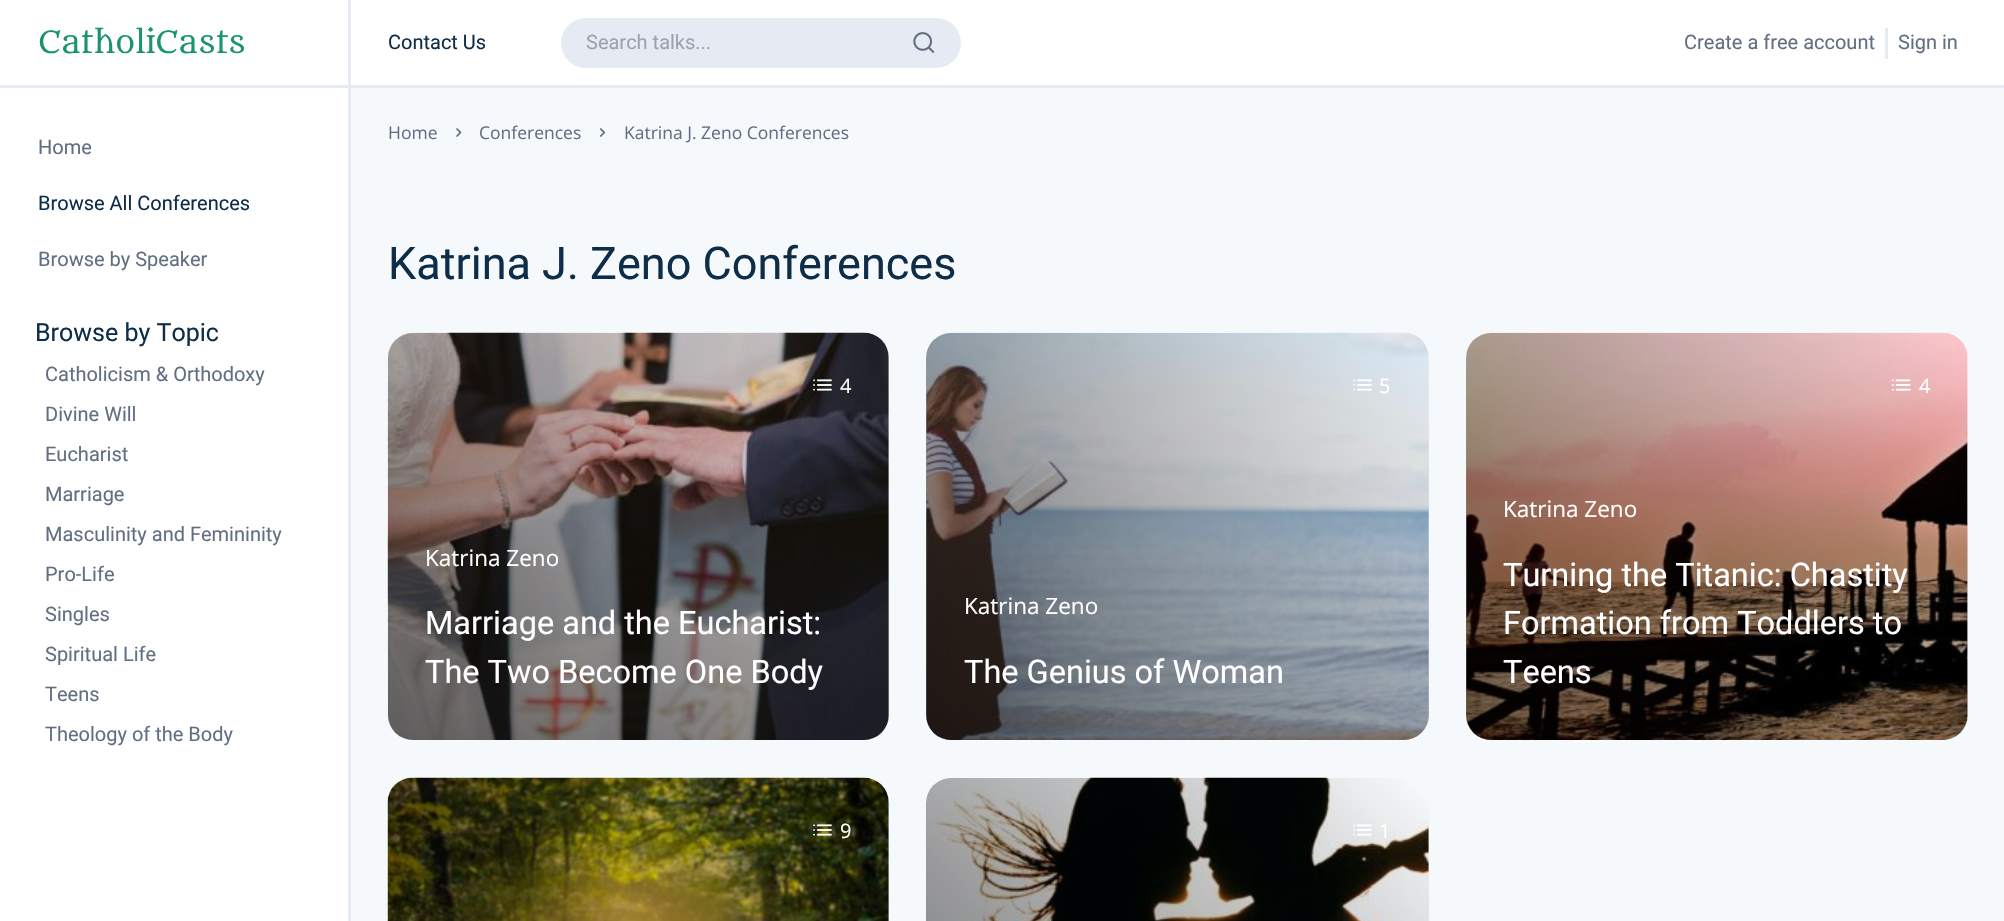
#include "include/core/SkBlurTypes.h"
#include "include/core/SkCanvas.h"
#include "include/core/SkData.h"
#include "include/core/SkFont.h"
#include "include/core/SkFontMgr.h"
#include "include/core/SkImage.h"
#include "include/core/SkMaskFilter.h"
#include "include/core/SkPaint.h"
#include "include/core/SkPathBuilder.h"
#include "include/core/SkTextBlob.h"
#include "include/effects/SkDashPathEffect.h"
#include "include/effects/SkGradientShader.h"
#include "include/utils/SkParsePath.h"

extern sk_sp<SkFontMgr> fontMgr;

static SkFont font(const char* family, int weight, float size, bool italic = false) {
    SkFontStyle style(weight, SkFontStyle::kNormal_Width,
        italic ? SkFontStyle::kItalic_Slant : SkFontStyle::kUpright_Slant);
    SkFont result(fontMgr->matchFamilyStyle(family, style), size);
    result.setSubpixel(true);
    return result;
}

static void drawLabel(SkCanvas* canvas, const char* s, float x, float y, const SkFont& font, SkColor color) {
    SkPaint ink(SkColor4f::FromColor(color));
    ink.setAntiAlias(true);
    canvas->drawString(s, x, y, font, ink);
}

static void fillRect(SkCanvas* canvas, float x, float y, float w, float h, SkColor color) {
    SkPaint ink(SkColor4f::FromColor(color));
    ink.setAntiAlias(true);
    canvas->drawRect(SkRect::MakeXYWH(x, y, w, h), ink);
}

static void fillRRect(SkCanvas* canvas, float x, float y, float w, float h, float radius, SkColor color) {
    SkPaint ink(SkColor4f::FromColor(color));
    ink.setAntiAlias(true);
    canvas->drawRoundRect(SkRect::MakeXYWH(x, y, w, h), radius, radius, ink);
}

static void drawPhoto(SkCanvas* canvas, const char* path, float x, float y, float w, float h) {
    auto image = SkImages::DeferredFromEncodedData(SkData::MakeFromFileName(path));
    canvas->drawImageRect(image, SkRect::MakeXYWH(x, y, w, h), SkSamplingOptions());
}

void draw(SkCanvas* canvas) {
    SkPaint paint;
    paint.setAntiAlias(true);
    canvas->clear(0xFFF6F9FB);
    fillRect(canvas, 0, 0, 348, 921, 0xFFFFFFFF);
    fillRect(canvas, 348, 0, 3, 921, 0xFFE6EAF2);
    fillRect(canvas, 0, 85, 348, 3, 0xFFE6EAF2);
    SkFont font1 = font("Metamorphous", 400, 30);
    drawLabel(canvas, "CatholiCasts", 38, 53, font1, 0xFF1A936F);
    SkFont font2 = font("Roboto", 400, 20);
    drawLabel(canvas, "Home", 38, 154, font2, 0xFF626F83);
    drawLabel(canvas, "Browse All Conferences", 38, 210, font2, 0xFF0E2D49);
    drawLabel(canvas, "Browse by Speaker", 38, 266, font2, 0xFF626F83);
    SkFont font3 = font("Roboto", 400, 25);
    drawLabel(canvas, "Browse by Topic", 35, 341, font3, 0xFF0E2D49);
    drawLabel(canvas, "Catholicism & Orthodoxy", 45, 381, font2, 0xFF626F83);
    drawLabel(canvas, "Divine Will", 45, 421, font2, 0xFF626F83);
    drawLabel(canvas, "Eucharist", 45, 461, font2, 0xFF626F83);
    drawLabel(canvas, "Marriage", 45, 501, font2, 0xFF626F83);
    drawLabel(canvas, "Masculinity and Femininity", 45, 541, font2, 0xFF626F83);
    drawLabel(canvas, "Pro-Life", 45, 581, font2, 0xFF626F83);
    drawLabel(canvas, "Singles", 45, 621, font2, 0xFF626F83);
    drawLabel(canvas, "Spiritual Life", 45, 661, font2, 0xFF626F83);
    drawLabel(canvas, "Teens", 45, 701, font2, 0xFF626F83);
    drawLabel(canvas, "Theology of the Body", 45, 741, font2, 0xFF626F83);
    fillRect(canvas, 351, 0, 1653, 85, 0xFFFFFFFF);
    fillRect(canvas, 351, 85, 1653, 3, 0xFFE6EAF2);
    drawLabel(canvas, "Contact Us", 388, 49, font2, 0xFF0E2D49);
    fillRRect(canvas, 561, 18, 400, 50, 25, 0xFFE6EAF2);
    drawLabel(canvas, "Search talks...", 586, 49, font2, 0xFF9CA3AF);
    drawPhoto(canvas, "assets/img1.png", 913, 32, 22, 21);
    drawLabel(canvas, "Create a free account", 1684, 49, font2, 0xFF626F83);
    fillRect(canvas, 1885, 28, 3, 31, 0xFFE6EAF2);
    drawLabel(canvas, "Sign in", 1898, 49, font2, 0xFF626F83);
    SkFont font4 = font("Open Sans", 400, 17.5f);
    drawLabel(canvas, "Home", 388, 139, font4, 0xFF626F83);
    drawPhoto(canvas, "assets/img2.png", 456, 128, 6, 9);
    drawLabel(canvas, "Conferences", 479, 139, font4, 0xFF626F83);
    drawPhoto(canvas, "assets/img3.png", 600, 128, 6, 9);
    drawLabel(canvas, "Katrina J. Zeno Conferences", 624, 139, font4, 0xFF626F83);
    SkFont font5 = font("Roboto", 400, 45);
    drawLabel(canvas, "Katrina J. Zeno Conferences", 388, 279, font5, 0xFF0E2D49);
    drawPhoto(canvas, "assets/img4.png", 387, 332, 502, 408);
    {
        const SkColor colors[] = {0x99000000, 0x00000000};
        const float stops[] = {0, 1};
        const SkPoint ends[] = {{411, 763}, {865, 309}};
        paint.setShader(SkGradientShader::MakeLinear(ends, colors, stops, 2, SkTileMode::kClamp));
        paint.setAlpha(255);
    }
    canvas->drawRoundRect(SkRect::MakeXYWH(388, 333, 501, 407), 25, 25, paint);
    drawPhoto(canvas, "assets/img5.png", 813, 379, 19, 12);
    SkFont font6 = font("Open Sans", 400, 20);
    drawLabel(canvas, "4", 840, 393, font6, 0xFFFFFFFF);
    SkFont font7 = font("Open Sans", 400, 22.5f);
    drawLabel(canvas, "Katrina Zeno", 425, 566, font7, 0xFFFFFFFF);
    SkFont font8 = font("Roboto", 400, 32.5f);
    drawLabel(canvas, "Marriage and the Eucharist:", 425, 634, font8, 0xFFFFFFFF);
    drawLabel(canvas, "The Two Become One Body", 425, 683, font8, 0xFFFFFFFF);
    drawPhoto(canvas, "assets/img6.png", 926, 332, 503, 408);
    {
        const SkColor colors[] = {0x99000000, 0x00000000};
        const float stops[] = {0, 1};
        const SkPoint ends[] = {{950, 764}, {1405, 309}};
        paint.setShader(SkGradientShader::MakeLinear(ends, colors, stops, 2, SkTileMode::kClamp));
        paint.setAlpha(255);
    }
    canvas->drawRoundRect(SkRect::MakeXYWH(926, 333, 503, 407), 25, 25, paint);
    drawPhoto(canvas, "assets/img7.png", 1353, 379, 19, 12);
    drawLabel(canvas, "5", 1379, 393, font6, 0xFFFFFFFF);
    drawLabel(canvas, "Katrina Zeno", 964, 614, font7, 0xFFFFFFFF);
    drawLabel(canvas, "The Genius of Woman", 964, 683, font8, 0xFFFFFFFF);
    drawPhoto(canvas, "assets/img8.png", 1466, 332, 502, 408);
    {
        const SkColor colors[] = {0x99000000, 0x00000000};
        const float stops[] = {0, 1};
        const SkPoint ends[] = {{1490, 763}, {1944, 309}};
        paint.setShader(SkGradientShader::MakeLinear(ends, colors, stops, 2, SkTileMode::kClamp));
        paint.setAlpha(255);
    }
    canvas->drawRoundRect(SkRect::MakeXYWH(1466, 333, 502, 407), 25, 25, paint);
    drawPhoto(canvas, "assets/img9.png", 1891, 379, 20, 12);
    drawLabel(canvas, "4", 1919, 393, font6, 0xFFFFFFFF);
    drawLabel(canvas, "Katrina Zeno", 1503, 517, font7, 0xFFFFFFFF);
    drawLabel(canvas, "Turning the Titanic: Chastity", 1503, 586, font8, 0xFFFFFFFF);
    drawLabel(canvas, "Formation from Toddlers to", 1503, 634, font8, 0xFFFFFFFF);
    drawLabel(canvas, "Teens", 1503, 683, font8, 0xFFFFFFFF);
    drawPhoto(canvas, "assets/img10.png", 387, 777, 502, 144);
    {
        const SkColor colors[] = {0x99000000, 0x00000000};
        const float stops[] = {0, 1};
        const SkPoint ends[] = {{411, 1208}, {865, 754}};
        paint.setShader(SkGradientShader::MakeLinear(ends, colors, stops, 2, SkTileMode::kClamp));
        paint.setAlpha(255);
    }
    canvas->drawRoundRect(SkRect::MakeXYWH(388, 778, 501, 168), 25, 25, paint);
    drawPhoto(canvas, "assets/img11.png", 813, 824, 19, 12);
    drawLabel(canvas, "9", 840, 838, font6, 0xFFFFFFFF);
    drawPhoto(canvas, "assets/img12.png", 927, 777, 502, 144);
    {
        const SkColor colors[] = {0x99000000, 0x00000000};
        const float stops[] = {0, 1};
        const SkPoint ends[] = {{950, 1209}, {1405, 754}};
        paint.setShader(SkGradientShader::MakeLinear(ends, colors, stops, 2, SkTileMode::kClamp));
        paint.setAlpha(255);
    }
    canvas->drawRoundRect(SkRect::MakeXYWH(926, 778, 503, 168), 25, 25, paint);
    drawPhoto(canvas, "assets/img13.png", 1353, 824, 19, 12);
    drawLabel(canvas, "1", 1379, 838, font6, 0xFFFFFFFF);
}
